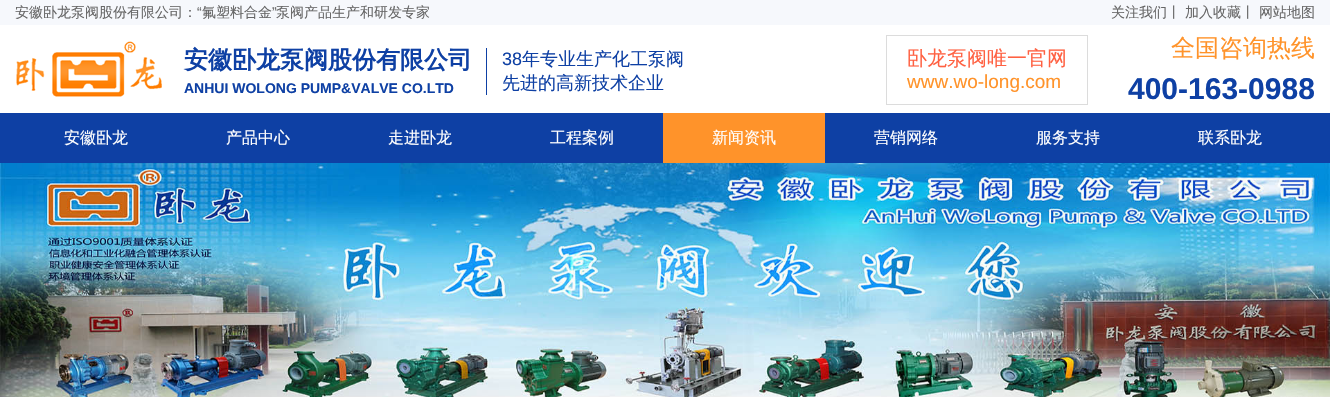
#include "include/core/SkBlurTypes.h"
#include "include/core/SkCanvas.h"
#include "include/core/SkData.h"
#include "include/core/SkFont.h"
#include "include/core/SkFontMgr.h"
#include "include/core/SkImage.h"
#include "include/core/SkMaskFilter.h"
#include "include/core/SkPaint.h"
#include "include/core/SkPathBuilder.h"
#include "include/core/SkTextBlob.h"
#include "include/effects/SkDashPathEffect.h"
#include "include/effects/SkGradientShader.h"
#include "include/utils/SkParsePath.h"

extern sk_sp<SkFontMgr> fontMgr;

static SkFont font(const char* family, int weight, float size, bool italic = false) {
    SkFontStyle style(weight, SkFontStyle::kNormal_Width,
        italic ? SkFontStyle::kItalic_Slant : SkFontStyle::kUpright_Slant);
    SkFont result(fontMgr->matchFamilyStyle(family, style), size);
    result.setSubpixel(true);
    return result;
}

static void drawLabel(SkCanvas* canvas, const char* s, float x, float y, const SkFont& font, SkColor color) {
    SkPaint ink(SkColor4f::FromColor(color));
    ink.setAntiAlias(true);
    canvas->drawString(s, x, y, font, ink);
}

static void fillRect(SkCanvas* canvas, float x, float y, float w, float h, SkColor color) {
    SkPaint ink(SkColor4f::FromColor(color));
    ink.setAntiAlias(true);
    canvas->drawRect(SkRect::MakeXYWH(x, y, w, h), ink);
}

static void drawPhoto(SkCanvas* canvas, const char* path, float x, float y, float w, float h) {
    auto image = SkImages::DeferredFromEncodedData(SkData::MakeFromFileName(path));
    canvas->drawImageRect(image, SkRect::MakeXYWH(x, y, w, h), SkSamplingOptions());
}

void draw(SkCanvas* canvas) {
    SkPaint paint;
    paint.setAntiAlias(true);
    canvas->clear(0xFFFFFFFF);
    fillRect(canvas, 0, 0, 1330, 25, 0xFFF6F8FC);
    SkFont font1 = font("WenQuanYi Zen Hei", 500, 14);
    drawLabel(canvas, "安徽卧龙泵阀股份有限公司：", 15, 17, font1, 0xFF666666);
    SkFont font2 = font("Liberation Sans", 400, 14);
    drawLabel(canvas, "“", 197, 17, font2, 0xFF666666);
    drawLabel(canvas, "氟塑料合金", 202, 17, font1, 0xFF666666);
    drawLabel(canvas, "”", 272, 17, font2, 0xFF666666);
    drawLabel(canvas, "泵阀产品生产和研发专家", 276, 17, font1, 0xFF666666);
    drawLabel(canvas, "关注我们丨", 1111, 17, font1, 0xFF666666);
    drawLabel(canvas, "加入收藏丨", 1185, 17, font1, 0xFF666666);
    drawLabel(canvas, "网站地图", 1259, 17, font1, 0xFF666666);
    drawPhoto(canvas, "assets/img1.png", 16, 41, 146, 56);
    SkFont font3 = font("WenQuanYi Zen Hei", 700, 24);
    drawLabel(canvas, "安徽卧龙泵阀股份有限公司", 184, 68, font3, 0xFF0E40A4);
    fillRect(canvas, 486, 48, 1, 47, 0xFF0E40A4);
    SkFont font4 = font("Liberation Sans", 700, 14);
    drawLabel(canvas, "ANHUI WOLONG PUMP&VALVE CO.LTD", 184, 93, font4, 0xFF0E40A4);
    SkFont font5 = font("Liberation Sans", 400, 18);
    drawLabel(canvas, "38", 502, 65, font5, 0xFF0E40A4);
    SkFont font6 = font("WenQuanYi Zen Hei", 500, 18);
    drawLabel(canvas, "年专业生产化工泵阀", 522, 65, font6, 0xFF0E40A4);
    drawLabel(canvas, "先进的高新技术企业", 502, 89, font6, 0xFF0E40A4);
    paint.setStroke(true);
    paint.setStrokeWidth(1);
    paint.setColor(0xFFDCDCDC);
    canvas->drawRect(SkRect::MakeXYWH(886.5f, 35.5f, 201, 69), paint);
    SkFont font7 = font("WenQuanYi Zen Hei", 500, 20);
    drawLabel(canvas, "卧龙泵阀唯一官网", 907, 65, font7, 0xFFFF6142);
    SkFont font8 = font("Liberation Sans", 400, 19);
    drawLabel(canvas, "www.wo-long.com", 907, 88, font8, 0xFFFF932A);
    SkFont font9 = font("WenQuanYi Zen Hei", 500, 24);
    drawLabel(canvas, "全国咨询热线", 1171, 56, font9, 0xFFFF932A);
    SkFont font10 = font("Liberation Sans", 700, 30);
    drawLabel(canvas, "400-163-0988", 1128, 99, font10, 0xFF0E40A4);
    fillRect(canvas, 0, 113, 1330, 50, 0xFF0E40A4);
    SkFont font11 = font("WenQuanYi Zen Hei", 500, 16);
    drawLabel(canvas, "安徽卧龙", 64, 143, font11, 0xFFFFFFFF);
    drawLabel(canvas, "产品中心", 226, 143, font11, 0xFFFFFFFF);
    drawLabel(canvas, "走进卧龙", 388, 143, font11, 0xFFFFFFFF);
    drawLabel(canvas, "工程案例", 550, 143, font11, 0xFFFFFFFF);
    fillRect(canvas, 663, 113, 162, 50, 0xFFFF932A);
    drawLabel(canvas, "新闻资讯", 712, 143, font11, 0xFFFFFFFF);
    drawLabel(canvas, "营销网络", 874, 143, font11, 0xFFFFFFFF);
    drawLabel(canvas, "服务支持", 1036, 143, font11, 0xFFFFFFFF);
    drawLabel(canvas, "联系卧龙", 1198, 143, font11, 0xFFFFFFFF);
    drawPhoto(canvas, "assets/img2.png", 0, 163, 1330, 234);
}
